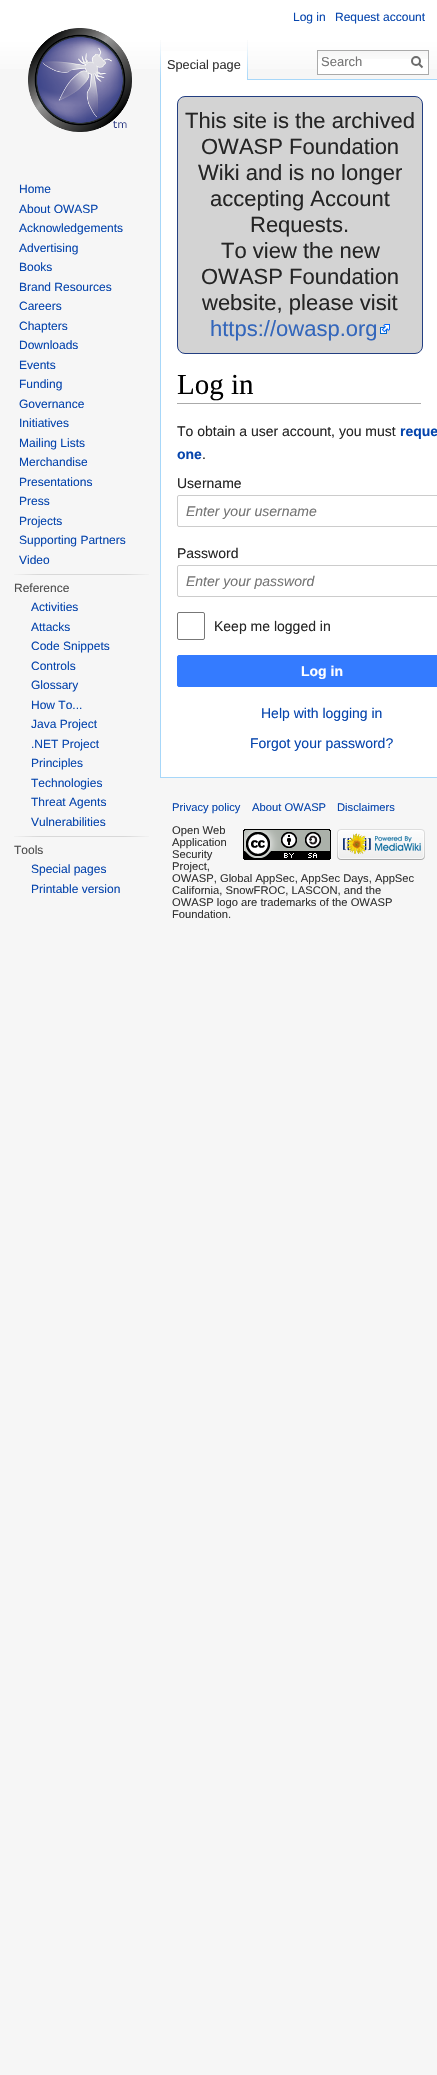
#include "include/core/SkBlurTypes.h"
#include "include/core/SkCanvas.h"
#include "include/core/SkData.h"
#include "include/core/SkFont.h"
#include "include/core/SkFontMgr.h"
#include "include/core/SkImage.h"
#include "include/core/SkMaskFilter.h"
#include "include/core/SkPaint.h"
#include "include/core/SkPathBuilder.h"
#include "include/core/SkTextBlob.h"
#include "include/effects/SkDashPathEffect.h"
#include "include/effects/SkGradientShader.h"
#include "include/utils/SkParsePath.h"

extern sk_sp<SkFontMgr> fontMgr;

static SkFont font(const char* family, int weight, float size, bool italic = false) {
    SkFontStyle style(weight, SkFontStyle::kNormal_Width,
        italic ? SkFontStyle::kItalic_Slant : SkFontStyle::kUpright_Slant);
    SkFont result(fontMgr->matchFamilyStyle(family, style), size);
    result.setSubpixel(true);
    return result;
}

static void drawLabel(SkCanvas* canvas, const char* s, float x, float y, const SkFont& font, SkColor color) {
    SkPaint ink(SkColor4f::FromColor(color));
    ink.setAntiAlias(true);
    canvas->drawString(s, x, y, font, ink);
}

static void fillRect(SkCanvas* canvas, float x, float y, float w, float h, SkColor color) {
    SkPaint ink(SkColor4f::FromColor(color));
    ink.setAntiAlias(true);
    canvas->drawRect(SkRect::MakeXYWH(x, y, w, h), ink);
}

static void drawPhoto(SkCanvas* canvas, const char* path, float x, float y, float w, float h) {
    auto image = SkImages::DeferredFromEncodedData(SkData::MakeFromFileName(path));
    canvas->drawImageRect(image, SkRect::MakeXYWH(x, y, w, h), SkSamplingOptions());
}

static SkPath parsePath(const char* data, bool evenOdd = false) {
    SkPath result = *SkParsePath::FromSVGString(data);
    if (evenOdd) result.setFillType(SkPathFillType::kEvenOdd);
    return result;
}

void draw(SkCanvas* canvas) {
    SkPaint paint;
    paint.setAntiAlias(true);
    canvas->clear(0xFFF6F6F6);
    {
        const SkColor colors[] = {0xFFFFFFFF, 0xFFF6F6F6};
        const float stops[] = {0.5f, 1};
        const SkPoint ends[] = {{219, 0}, {219, 80}};
        paint.setShader(SkGradientShader::MakeLinear(ends, colors, stops, 2, SkTileMode::kClamp));
        paint.setAlpha(255);
    }
    canvas->drawRect(SkRect::MakeXYWH(0, 0, 437, 69), paint);
    SkFont font1 = font("Liberation Sans", 400, 12);
    drawLabel(canvas, "Log in", 293, 21, font1, 0xFF0645AD);
    drawLabel(canvas, "Request account", 335, 21, font1, 0xFF0645AD);
    drawPhoto(canvas, "assets/img1.png", 160, 40, 1, 39);
    fillRect(canvas, 161, 51, 86, 29, 0xFFFFFFFF);
    drawPhoto(canvas, "assets/img2.png", 247, 40, 1, 40);
    SkFont font2 = font("Liberation Sans", 400, 12.75f);
    drawLabel(canvas, "Special page", 167, 69, font2, 0xFF333333);
    fillRect(canvas, 318, 59, 110, 15, 0xFFFFFFFF);
    drawPhoto(canvas, "assets/img3.png", 318, 51, 110, 8);
    paint.setStroke(true);
    paint.setStrokeWidth(1);
    paint.setShader(nullptr);
    paint.setColor(0xFFAAAAAA);
    canvas->drawRect(SkRect::MakeXYWH(317.5f, 50.5f, 111, 24), paint);
    SkFont font3 = font("Liberation Sans", 400, 13);
    drawLabel(canvas, "Search", 321, 66, font3, 0xFF757575);
    paint.setStrokeWidth(2);
    paint.setColor(0xFF6C6C6C);
    canvas->drawPath(parsePath("M422.5 67.5L418.5 63.5"), paint);
    canvas->drawCircle(416, 61, 4, paint);
    drawPhoto(canvas, "assets/img4.png", 28, 28, 104, 104);
    drawLabel(canvas, "Home", 19, 193, font1, 0xFF0645AD);
    drawLabel(canvas, "About OWASP", 19, 213, font1, 0xFF0645AD);
    drawLabel(canvas, "Acknowledgements", 19, 232, font1, 0xFF0645AD);
    drawLabel(canvas, "Advertising", 19, 252, font1, 0xFF0645AD);
    drawLabel(canvas, "Books", 19, 271, font1, 0xFF0645AD);
    drawLabel(canvas, "Brand Resources", 19, 291, font1, 0xFF0645AD);
    drawLabel(canvas, "Careers", 19, 310, font1, 0xFF0645AD);
    drawLabel(canvas, "Chapters", 19, 330, font1, 0xFF0645AD);
    drawLabel(canvas, "Downloads", 19, 349, font1, 0xFF0645AD);
    drawLabel(canvas, "Events", 19, 369, font1, 0xFF0645AD);
    drawLabel(canvas, "Funding", 19, 388, font1, 0xFF0645AD);
    drawLabel(canvas, "Governance", 19, 408, font1, 0xFF0645AD);
    drawLabel(canvas, "Initiatives", 19, 427, font1, 0xFF0645AD);
    drawLabel(canvas, "Mailing Lists", 19, 447, font1, 0xFF0645AD);
    drawLabel(canvas, "Merchandise", 19, 466, font1, 0xFF0645AD);
    drawLabel(canvas, "Presentations", 19, 486, font1, 0xFF0645AD);
    drawLabel(canvas, "Press", 19, 505, font1, 0xFF0645AD);
    drawLabel(canvas, "Projects", 19, 525, font1, 0xFF0645AD);
    drawLabel(canvas, "Supporting Partners", 19, 544, font1, 0xFF0645AD);
    drawLabel(canvas, "Video", 19, 564, font1, 0xFF0645AD);
    drawPhoto(canvas, "assets/img5.png", 14, 574, 135, 1);
    drawLabel(canvas, "Reference", 14, 592, font1, 0xFF4D4D4D);
    drawLabel(canvas, "Activities", 31, 611, font1, 0xFF0645AD);
    drawLabel(canvas, "Attacks", 31, 631, font1, 0xFF0645AD);
    drawLabel(canvas, "Code Snippets", 31, 650, font1, 0xFF0645AD);
    drawLabel(canvas, "Controls", 31, 670, font1, 0xFF0645AD);
    drawLabel(canvas, "Glossary", 31, 689, font1, 0xFF0645AD);
    drawLabel(canvas, "How To...", 31, 709, font1, 0xFF0645AD);
    drawLabel(canvas, "Java Project", 31, 728, font1, 0xFF0645AD);
    drawLabel(canvas, ".NET Project", 31, 748, font1, 0xFF0645AD);
    drawLabel(canvas, "Principles", 31, 767, font1, 0xFF0645AD);
    drawLabel(canvas, "Technologies", 31, 787, font1, 0xFF0645AD);
    drawLabel(canvas, "Threat Agents", 31, 806, font1, 0xFF0645AD);
    drawLabel(canvas, "Vulnerabilities", 31, 826, font1, 0xFF0645AD);
    drawPhoto(canvas, "assets/img5.png", 14, 836, 135, 1);
    drawLabel(canvas, "Tools", 14, 854, font1, 0xFF4D4D4D);
    drawLabel(canvas, "Special pages", 31, 873, font1, 0xFF0645AD);
    drawLabel(canvas, "Printable version", 31, 893, font1, 0xFF0645AD);
    fillRect(canvas, 161, 80, 276, 697, 0xFFFFFFFF);
    fillRect(canvas, 248, 79, 189, 1, 0xFFA7D7F9);
    fillRect(canvas, 160, 777, 277, 1, 0xFFA7D7F9);
    fillRect(canvas, 160, 79, 1, 699, 0xFFA7D7F9);
    paint.setStroke(false);
    paint.setColor(0xFFD3D3D3);
    canvas->drawRoundRect(SkRect::MakeXYWH(177.5f, 96.5f, 245, 257), 7.5f, 7.5f, paint);
    paint.setStroke(true);
    paint.setStrokeWidth(1);
    paint.setColor(0xFF233E81);
    canvas->drawRoundRect(SkRect::MakeXYWH(177.5f, 96.5f, 245, 257), 7.5f, 7.5f, paint);
    SkFont font4 = font("Liberation Sans", 400, 22);
    drawLabel(canvas, "This site is the archived", 185, 128, font4, 0xFF252525);
    drawLabel(canvas, "OWASP Foundation", 201, 154, font4, 0xFF252525);
    drawLabel(canvas, "Wiki and is no longer", 198, 180, font4, 0xFF252525);
    drawLabel(canvas, "accepting Account", 210, 206, font4, 0xFF252525);
    drawLabel(canvas, "Requests.", 250, 232, font4, 0xFF252525);
    drawLabel(canvas, "To view the new", 221, 258, font4, 0xFF252525);
    drawLabel(canvas, "OWASP Foundation", 201, 284, font4, 0xFF252525);
    drawLabel(canvas, "website, please visit", 202, 310, font4, 0xFF252525);
    drawLabel(canvas, "https://owasp.org", 210, 336, font4, 0xFF3366BB);
    drawPhoto(canvas, "assets/img6.png", 380, 324, 10, 10);
    fillRect(canvas, 177, 403, 244, 1, 0xFFAAAAAA);
    SkFont font5 = font("Liberation Serif", 400, 29);
    drawLabel(canvas, "Log in", 177, 394, font5, 0xFF000000);
    SkFont font6 = font("Liberation Sans", 400, 14);
    drawLabel(canvas, "To obtain a user account, you must", 177, 436, font6, 0xFF252525);
    SkFont font7 = font("Liberation Sans", 700, 14);
    drawLabel(canvas, "reque", 400, 436, font7, 0xFF0645AD);
    drawLabel(canvas, "one", 177, 459, font7, 0xFF0645AD);
    drawLabel(canvas, ".", 202, 459, font6, 0xFF252525);
    drawLabel(canvas, "Username", 177, 488, font6, 0xFF252525);
    paint.setColor(0xFFCCCCCC);
    canvas->drawRoundRect(SkRect::MakeXYWH(177.5f, 495.5f, 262, 31), 1.5f, 1.5f, paint);
    SkFont font8 = font("Liberation Sans", 400, 14, true);
    drawLabel(canvas, "Enter your username", 186, 516, font8, 0xFF757575);
    drawLabel(canvas, "Password", 177, 558, font6, 0xFF252525);
    canvas->drawRoundRect(SkRect::MakeXYWH(177.5f, 565.5f, 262, 31), 1.5f, 1.5f, paint);
    drawLabel(canvas, "Enter your password", 186, 586, font8, 0xFF757575);
    paint.setColor(0xFF777777);
    canvas->drawRoundRect(SkRect::MakeXYWH(177.5f, 612.5f, 27, 27), 1.5f, 1.5f, paint);
    drawLabel(canvas, "Keep me logged in", 214, 631, font6, 0xFF252525);
    paint.setStroke(false);
    paint.setColor(0xFF347BFF);
    canvas->drawRoundRect(SkRect::MakeXYWH(177.5f, 655.5f, 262, 31), 1.5f, 1.5f, paint);
    paint.setStroke(true);
    canvas->drawRoundRect(SkRect::MakeXYWH(177.5f, 655.5f, 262, 31), 1.5f, 1.5f, paint);
    drawLabel(canvas, "Log in", 301, 676, font7, 0xFFFFFFFF);
    drawLabel(canvas, "Help with logging in", 261, 718, font6, 0xFF0645AD);
    drawLabel(canvas, "Forgot your password?", 250, 748, font6, 0xFF0645AD);
    SkFont font9 = font("Liberation Sans", 400, 11.2f);
    drawLabel(canvas, "Privacy policy", 172, 811, font9, 0xFF0645AD);
    drawLabel(canvas, "About OWASP", 252, 811, font9, 0xFF0645AD);
    drawLabel(canvas, "Disclaimers", 337, 811, font9, 0xFF0645AD);
    drawLabel(canvas, "Open Web", 172, 834, font9, 0xFF333333);
    drawLabel(canvas, "Application", 172, 846, font9, 0xFF333333);
    drawLabel(canvas, "Security", 172, 858, font9, 0xFF333333);
    drawLabel(canvas, "Project,", 172, 870, font9, 0xFF333333);
    drawLabel(canvas, "OWASP, Global AppSec, AppSec Days, AppSec", 172, 882, font9, 0xFF333333);
    drawLabel(canvas, "California, SnowFROC, LASCON, and the", 172, 894, font9, 0xFF333333);
    drawLabel(canvas, "OWASP logo are trademarks of the OWASP", 172, 906, font9, 0xFF333333);
    drawLabel(canvas, "Foundation.", 172, 918, font9, 0xFF333333);
    drawPhoto(canvas, "assets/img7.png", 243, 829, 88, 31);
    drawPhoto(canvas, "assets/img8.png", 337, 829, 88, 31);
}
